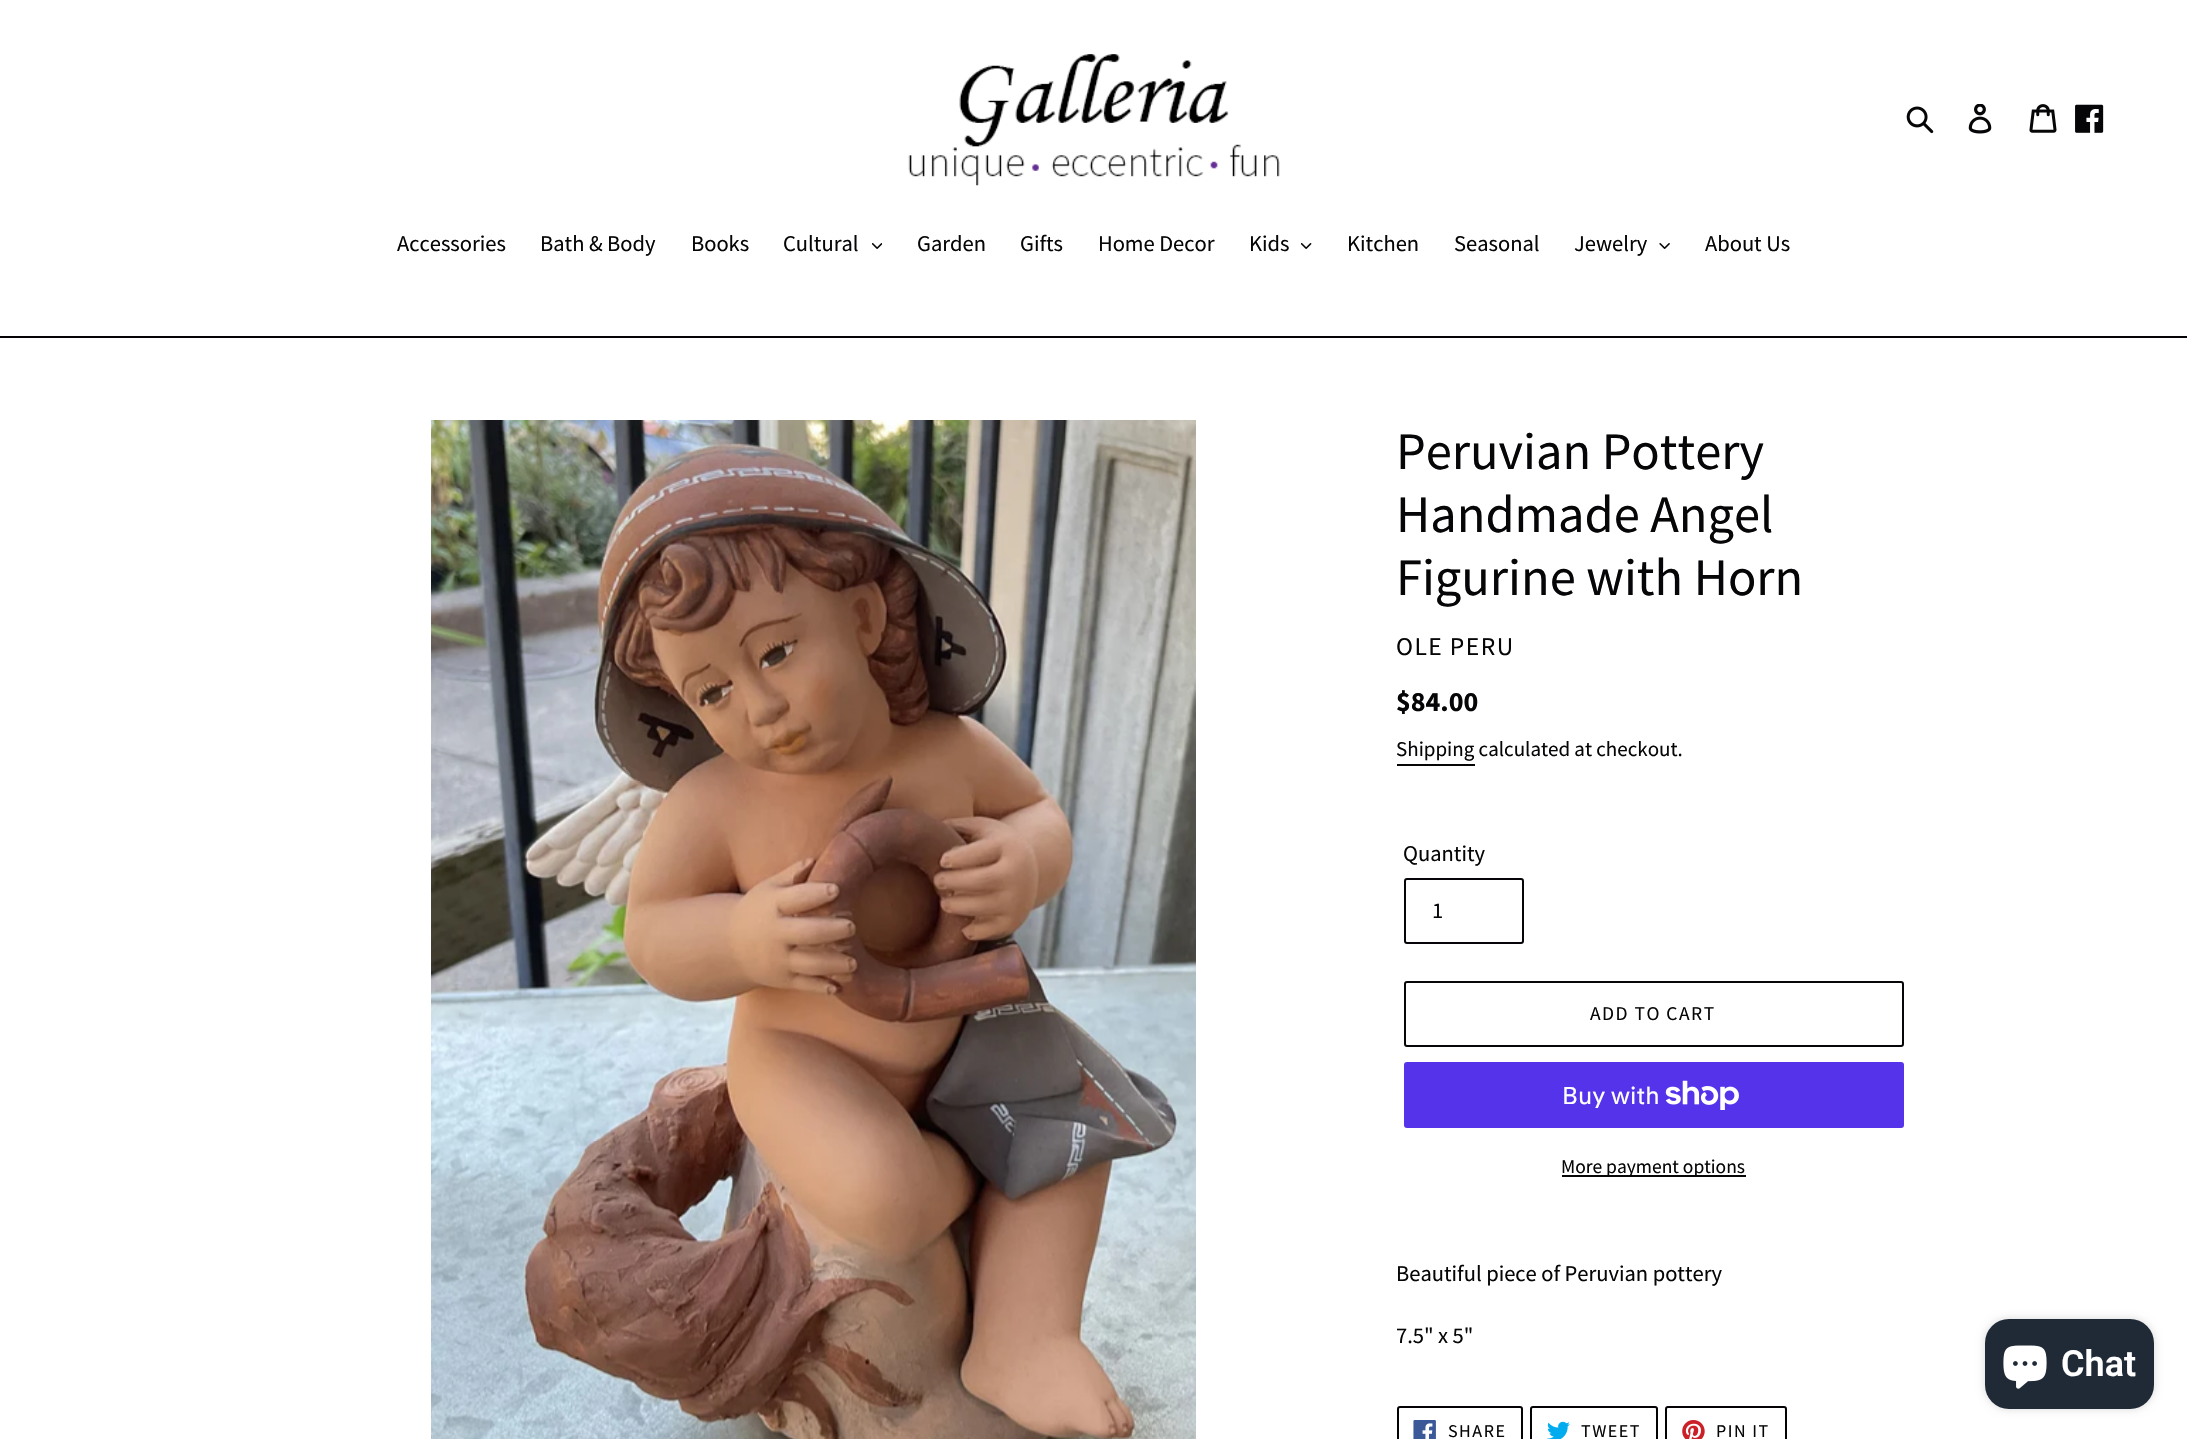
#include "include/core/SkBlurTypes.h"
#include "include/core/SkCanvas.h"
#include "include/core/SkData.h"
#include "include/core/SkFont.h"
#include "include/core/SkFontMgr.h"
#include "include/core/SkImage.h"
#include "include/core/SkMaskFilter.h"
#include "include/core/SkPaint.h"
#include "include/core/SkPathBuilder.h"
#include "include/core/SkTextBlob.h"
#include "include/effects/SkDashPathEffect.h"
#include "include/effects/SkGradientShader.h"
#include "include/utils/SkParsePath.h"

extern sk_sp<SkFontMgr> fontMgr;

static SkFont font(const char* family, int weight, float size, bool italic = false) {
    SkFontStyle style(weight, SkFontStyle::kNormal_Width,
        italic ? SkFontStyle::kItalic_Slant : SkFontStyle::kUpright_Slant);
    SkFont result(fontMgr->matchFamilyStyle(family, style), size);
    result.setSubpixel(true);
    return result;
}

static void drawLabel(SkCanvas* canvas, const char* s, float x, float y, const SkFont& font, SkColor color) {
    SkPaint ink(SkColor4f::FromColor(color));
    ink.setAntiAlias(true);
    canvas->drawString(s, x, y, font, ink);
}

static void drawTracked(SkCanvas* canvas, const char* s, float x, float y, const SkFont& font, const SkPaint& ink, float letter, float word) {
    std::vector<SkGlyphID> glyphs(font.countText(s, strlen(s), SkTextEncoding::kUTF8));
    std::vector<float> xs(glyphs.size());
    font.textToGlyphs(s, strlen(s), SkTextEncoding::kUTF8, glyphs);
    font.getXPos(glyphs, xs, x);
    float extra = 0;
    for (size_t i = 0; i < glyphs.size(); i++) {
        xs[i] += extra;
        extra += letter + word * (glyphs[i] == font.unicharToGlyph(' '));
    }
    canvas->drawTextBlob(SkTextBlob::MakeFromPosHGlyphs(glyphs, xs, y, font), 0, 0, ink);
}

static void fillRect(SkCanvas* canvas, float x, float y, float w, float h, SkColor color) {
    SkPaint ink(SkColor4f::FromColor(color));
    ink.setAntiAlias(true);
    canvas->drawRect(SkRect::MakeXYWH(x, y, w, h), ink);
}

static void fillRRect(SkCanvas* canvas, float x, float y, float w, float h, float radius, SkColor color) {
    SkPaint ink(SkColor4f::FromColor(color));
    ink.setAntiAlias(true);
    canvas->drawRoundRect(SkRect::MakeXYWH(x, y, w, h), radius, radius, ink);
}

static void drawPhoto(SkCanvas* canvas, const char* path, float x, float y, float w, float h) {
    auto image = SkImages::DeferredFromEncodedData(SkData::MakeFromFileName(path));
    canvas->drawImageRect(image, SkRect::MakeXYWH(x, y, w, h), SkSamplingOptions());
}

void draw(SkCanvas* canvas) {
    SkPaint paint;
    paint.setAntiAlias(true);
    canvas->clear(0xFFFFFFFF);
    drawPhoto(canvas, "assets/img1.png", 908, 54, 372, 132);
    drawPhoto(canvas, "assets/img2.png", 1906, 106, 28, 28);
    drawPhoto(canvas, "assets/img3.png", 1968, 104, 24, 30);
    drawPhoto(canvas, "assets/img4.png", 2029, 104, 28, 29);
    drawPhoto(canvas, "assets/img5.png", 2075, 104, 29, 29);
    fillRect(canvas, 0, 336, 2187, 2, 0xFF040205);
    SkFont font1 = font("Source Sans Pro", 400, 22.5f);
    drawLabel(canvas, "Accessories", 397, 251, font1, 0xFF060507);
    drawLabel(canvas, "Bath & Body", 540, 251, font1, 0xFF060507);
    drawLabel(canvas, "Books", 691, 251, font1, 0xFF060507);
    drawLabel(canvas, "Cultural", 783, 251, font1, 0xFF060507);
    drawPhoto(canvas, "assets/img6.png", 872, 243, 10, 6);
    drawLabel(canvas, "Garden", 917, 251, font1, 0xFF060507);
    drawLabel(canvas, "Gifts", 1020, 251, font1, 0xFF060507);
    drawLabel(canvas, "Home Decor", 1098, 251, font1, 0xFF060507);
    drawLabel(canvas, "Kids", 1249, 251, font1, 0xFF060507);
    drawPhoto(canvas, "assets/img7.png", 1301, 243, 11, 6);
    drawLabel(canvas, "Kitchen", 1347, 251, font1, 0xFF060507);
    drawLabel(canvas, "Seasonal", 1454, 251, font1, 0xFF060507);
    drawLabel(canvas, "Jewelry", 1574, 251, font1, 0xFF060507);
    drawPhoto(canvas, "assets/img8.png", 1659, 243, 11, 6);
    drawLabel(canvas, "About Us", 1705, 251, font1, 0xFF060507);
    drawPhoto(canvas, "assets/img9.png", 431, 420, 765, 1019);
    SkFont font2 = font("Source Sans Pro", 400, 52.5f);
    drawLabel(canvas, "Peruvian Pottery", 1396, 469, font2, 0xFF060507);
    drawLabel(canvas, "Handmade Angel", 1396, 532, font2, 0xFF060507);
    drawLabel(canvas, "Figurine with Horn", 1396, 595, font2, 0xFF060507);
    SkFont font3 = font("Source Sans Pro", 400, 25.5f);
    paint.setColor(0xFF060507);
    drawTracked(canvas, "OLE PERU", 1396, 655, font3, paint, 1.5f, 0);
    SkFont font4 = font("Source Sans Pro", 700, 28);
    drawLabel(canvas, "$84.00", 1396, 711, font4, 0xFF060507);
    SkFont font5 = font("Source Sans Pro", 400, 21);
    drawLabel(canvas, "Shipping calculated at checkout.", 1396, 756, font5, 0xFF060507);
    fillRect(canvas, 1397, 764, 78, 2, 0xFF060507);
    drawLabel(canvas, "Quantity", 1403, 861, font1, 0xFF060507);
    paint.setStroke(true);
    paint.setStrokeWidth(2);
    paint.setColor(0xFF060408);
    canvas->drawRoundRect(SkRect::MakeXYWH(1405, 879, 118, 64), 2, 2, paint);
    drawLabel(canvas, "1", 1432, 918, font1, 0xFF060507);
    paint.setColor(0xFF060507);
    canvas->drawRoundRect(SkRect::MakeXYWH(1405, 982, 498, 64), 2, 2, paint);
    SkFont font6 = font("Source Sans Pro", 400, 19.5f);
    paint.setStroke(false);
    drawTracked(canvas, "ADD TO CART", 1590, 1020, font6, paint, 1.5f, 0);
    fillRRect(canvas, 1404, 1062, 500, 66, 3, 0xFF5433EB);
    SkFont font7 = font("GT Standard", 400, 24);
    drawLabel(canvas, "Buy with", 1562, 1104, font7, 0xFFFFFFFF);
    drawPhoto(canvas, "assets/img10.png", 1665, 1080, 74, 30);
    fillRect(canvas, 1562, 1175, 184, 2, 0xFF060507);
    drawLabel(canvas, "More payment options", 1561, 1173, font6, 0xFF060507);
    drawLabel(canvas, "Beautiful piece of Peruvian pottery", 1396, 1281, font1, 0xFF060507);
    drawLabel(canvas, "7.5\" x 5\"", 1396, 1343, font1, 0xFF060507);
    paint.setStroke(true);
    paint.setColor(0xFF040205);
    canvas->drawRoundRect(SkRect::MakeXYWH(1398, 1407, 124, 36), 2, 2, paint);
    drawPhoto(canvas, "assets/img11.png", 1413, 1420, 23, 19);
    SkFont font8 = font("Source Sans Pro", 400, 18);
    paint.setStroke(false);
    paint.setColor(0xFF060507);
    drawTracked(canvas, "SHARE", 1448, 1437, font8, paint, 1.5f, 0);
    paint.setStroke(true);
    paint.setColor(0xFF040205);
    canvas->drawRoundRect(SkRect::MakeXYWH(1531, 1407, 126, 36), 2, 2, paint);
    drawPhoto(canvas, "assets/img12.png", 1547, 1421, 23, 18);
    paint.setStroke(false);
    paint.setColor(0xFF060507);
    drawTracked(canvas, "TWEET", 1581, 1437, font8, paint, 1.5f, 0);
    paint.setStroke(true);
    paint.setColor(0xFF040205);
    canvas->drawRoundRect(SkRect::MakeXYWH(1666, 1407, 120, 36), 2, 2, paint);
    drawPhoto(canvas, "assets/img13.png", 1682, 1420, 23, 19);
    paint.setStroke(false);
    paint.setColor(0xFF060507);
    drawTracked(canvas, "PIN IT", 1716, 1437, font8, paint, 1.5f, 0);
    paint.setColor(0x26000000);
    paint.setMaskFilter(SkMaskFilter::MakeBlur(kNormal_SkBlurStyle, 4));
    canvas->drawRoundRect(SkRect::MakeXYWH(1985, 1319, 169, 90), 24, 24, paint);
    paint.setMaskFilter(nullptr);
    fillRRect(canvas, 1985, 1319, 169, 90, 24, 0xFF202A36);
    drawPhoto(canvas, "assets/img14.png", 2003, 1345, 44, 44);
    SkFont font9 = font("Roboto", 600, 36);
    drawLabel(canvas, "Chat", 2061, 1376, font9, 0xFFFFFFFF);
}
